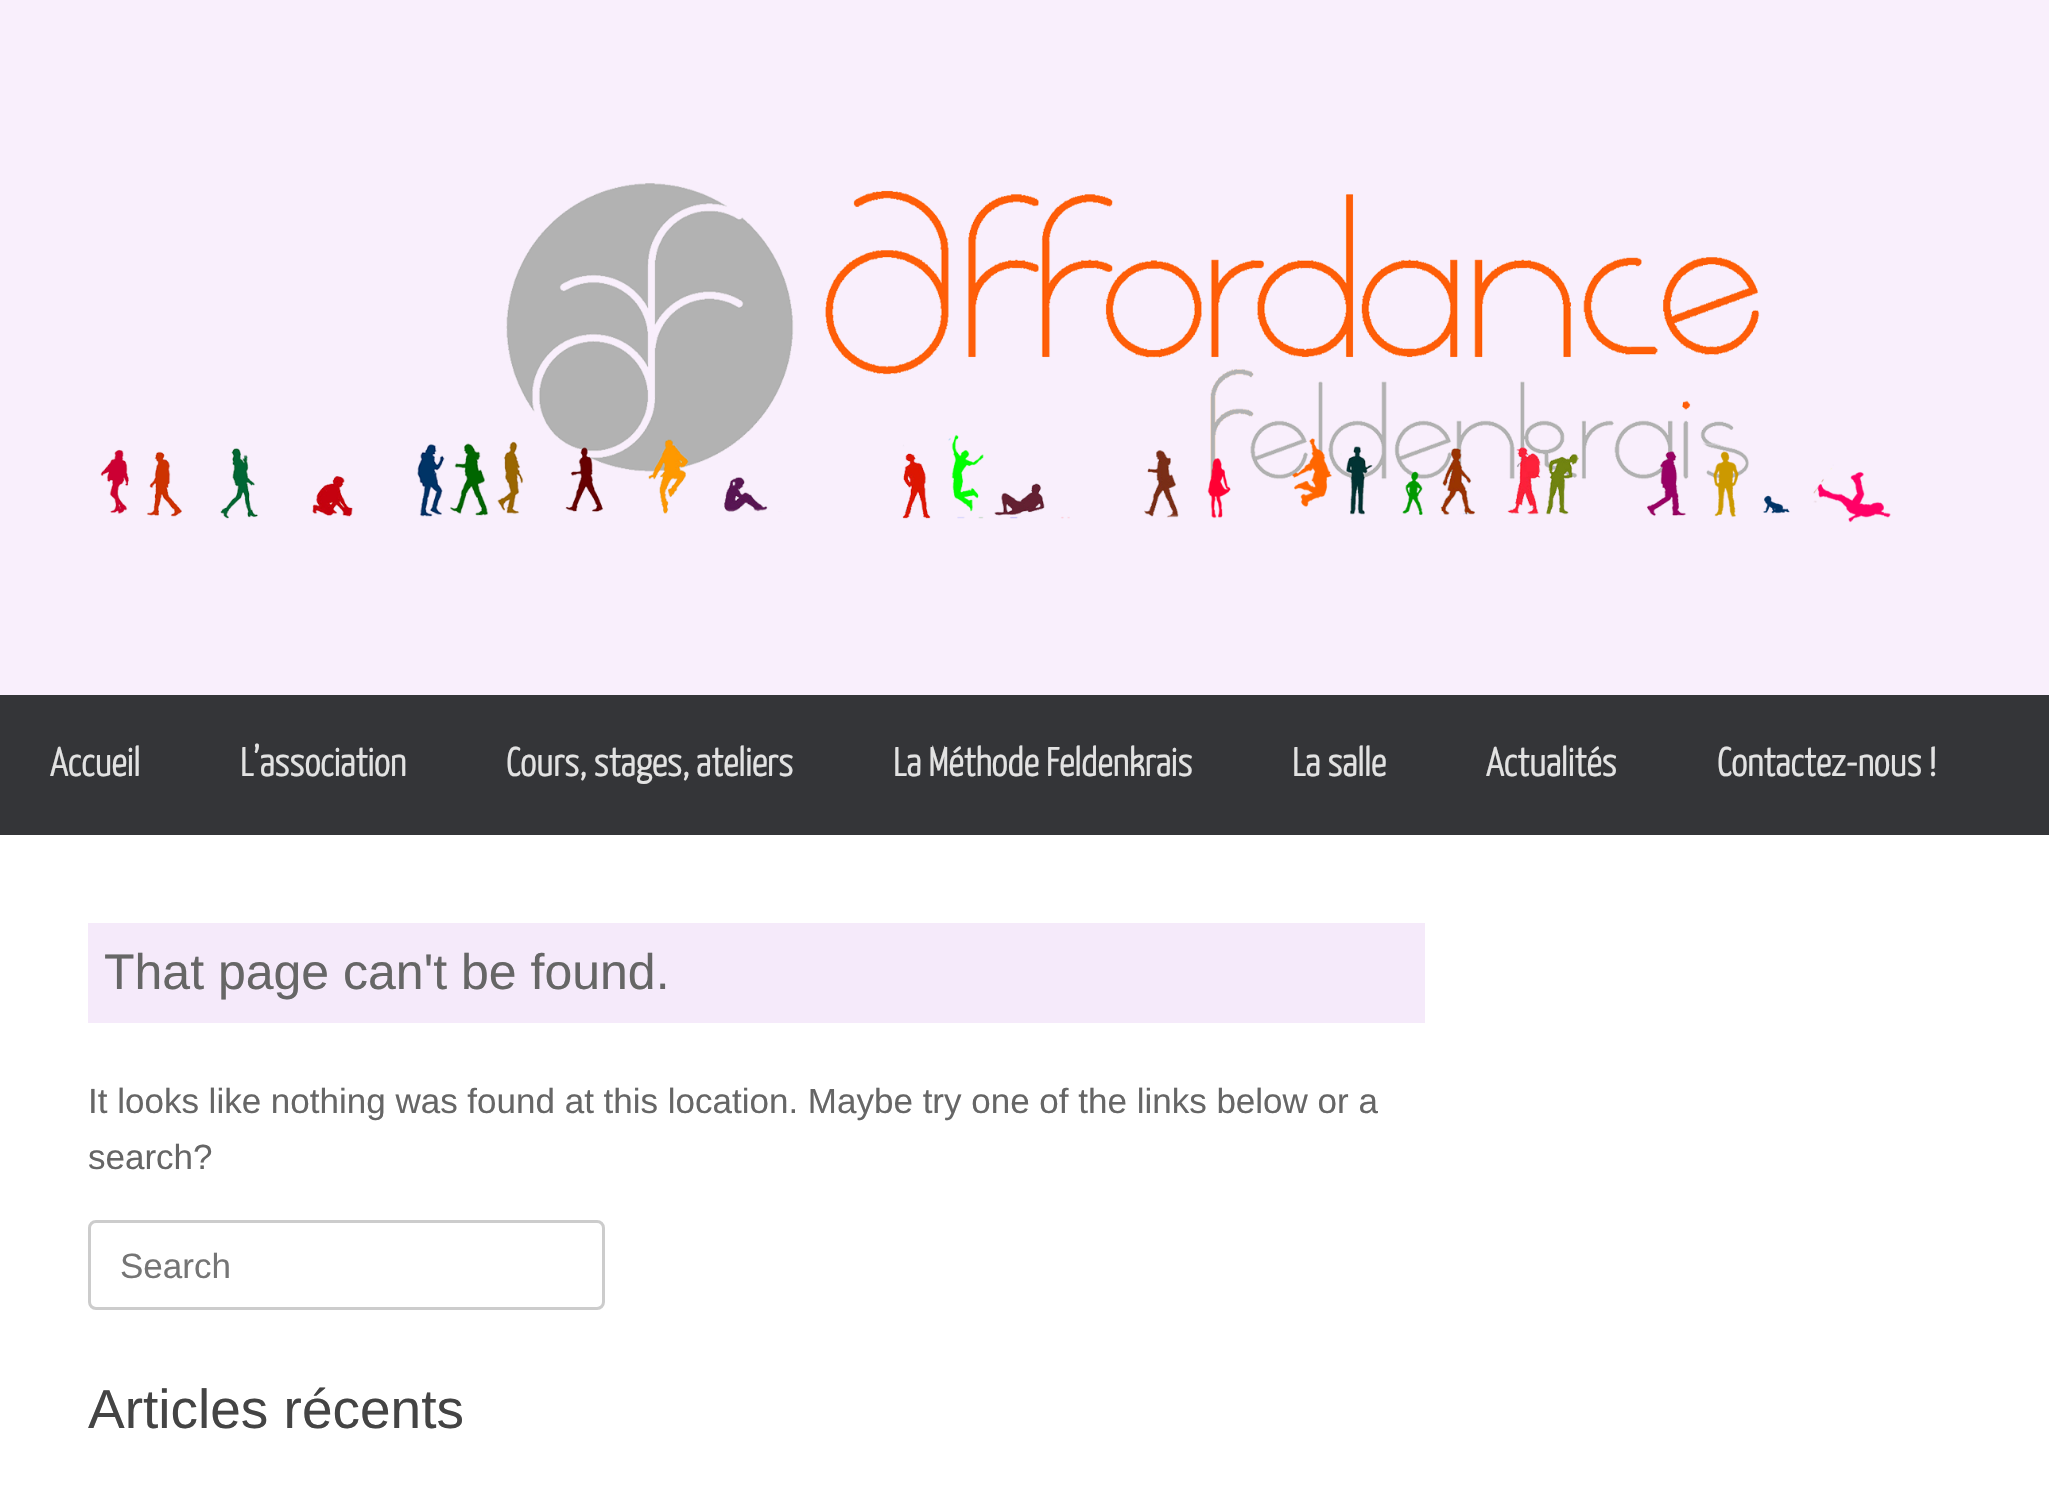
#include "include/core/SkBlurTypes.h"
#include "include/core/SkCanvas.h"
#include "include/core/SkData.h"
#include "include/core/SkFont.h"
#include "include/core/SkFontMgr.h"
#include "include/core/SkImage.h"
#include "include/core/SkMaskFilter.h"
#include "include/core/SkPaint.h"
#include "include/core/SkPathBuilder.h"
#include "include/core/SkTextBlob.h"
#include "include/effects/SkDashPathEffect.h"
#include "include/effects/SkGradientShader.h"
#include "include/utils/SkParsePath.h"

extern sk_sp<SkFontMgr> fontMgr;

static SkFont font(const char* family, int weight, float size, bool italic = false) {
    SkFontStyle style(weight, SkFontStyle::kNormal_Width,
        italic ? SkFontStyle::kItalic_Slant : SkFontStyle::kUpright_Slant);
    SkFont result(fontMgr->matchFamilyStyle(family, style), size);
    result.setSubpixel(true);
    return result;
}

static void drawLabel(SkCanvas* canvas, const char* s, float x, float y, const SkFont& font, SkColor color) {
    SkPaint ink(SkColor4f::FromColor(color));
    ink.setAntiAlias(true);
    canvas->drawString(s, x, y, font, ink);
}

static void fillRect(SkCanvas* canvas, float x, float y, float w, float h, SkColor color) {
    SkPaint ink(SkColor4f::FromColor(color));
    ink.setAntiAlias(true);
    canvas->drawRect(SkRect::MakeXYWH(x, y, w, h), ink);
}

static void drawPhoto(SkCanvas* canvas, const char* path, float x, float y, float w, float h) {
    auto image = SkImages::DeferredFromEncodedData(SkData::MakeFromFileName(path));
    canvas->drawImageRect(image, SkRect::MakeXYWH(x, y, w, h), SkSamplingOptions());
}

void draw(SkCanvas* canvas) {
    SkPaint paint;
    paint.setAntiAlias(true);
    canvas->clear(0xFFF9EFFC);
    drawPhoto(canvas, "assets/img1.png", 100, 183, 1791, 340);
    fillRect(canvas, 0, 695, 2049, 140, 0xFF343538);
    SkFont font1 = font("Yanone Kaffeesatz", 700, 40);
    drawLabel(canvas, "Accueil", 50, 776, font1, 0xFFE2E2E2);
    drawLabel(canvas, "L’association", 240, 776, font1, 0xFFE2E2E2);
    drawLabel(canvas, "Cours, stages, ateliers", 506, 776, font1, 0xFFE2E2E2);
    drawLabel(canvas, "La Méthode Feldenkrais", 893, 776, font1, 0xFFE2E2E2);
    drawLabel(canvas, "La salle", 1292, 776, font1, 0xFFE2E2E2);
    drawLabel(canvas, "Actualités", 1486, 776, font1, 0xFFE2E2E2);
    drawLabel(canvas, "Contactez-nous !", 1717, 776, font1, 0xFFE2E2E2);
    fillRect(canvas, 0, 835, 2049, 656, 0xFFFFFFFF);
    fillRect(canvas, 88, 923, 1337, 100, 0xFFF5EAFA);
    SkFont font2 = font("Liberation Sans", 400, 50);
    drawLabel(canvas, "That page can't be found.", 104, 989, font2, 0xFF666666);
    SkFont font3 = font("Liberation Sans", 400, 35);
    drawLabel(canvas, "It looks like nothing was found at this location. Maybe try one of the links below or a", 88, 1113, font3, 0xFF666666);
    drawLabel(canvas, "search?", 88, 1169, font3, 0xFF666666);
    paint.setStroke(true);
    paint.setStrokeWidth(3);
    paint.setColor(0xFFCCCCCC);
    canvas->drawRoundRect(SkRect::MakeXYWH(89.5f, 1221.5f, 514, 87), 6.5f, 6.5f, paint);
    drawLabel(canvas, "Search", 120, 1278, font3, 0xFF757575);
    SkFont font4 = font("Liberation Sans", 400, 55);
    drawLabel(canvas, "Articles récents", 88, 1428, font4, 0xFF444444);
}
